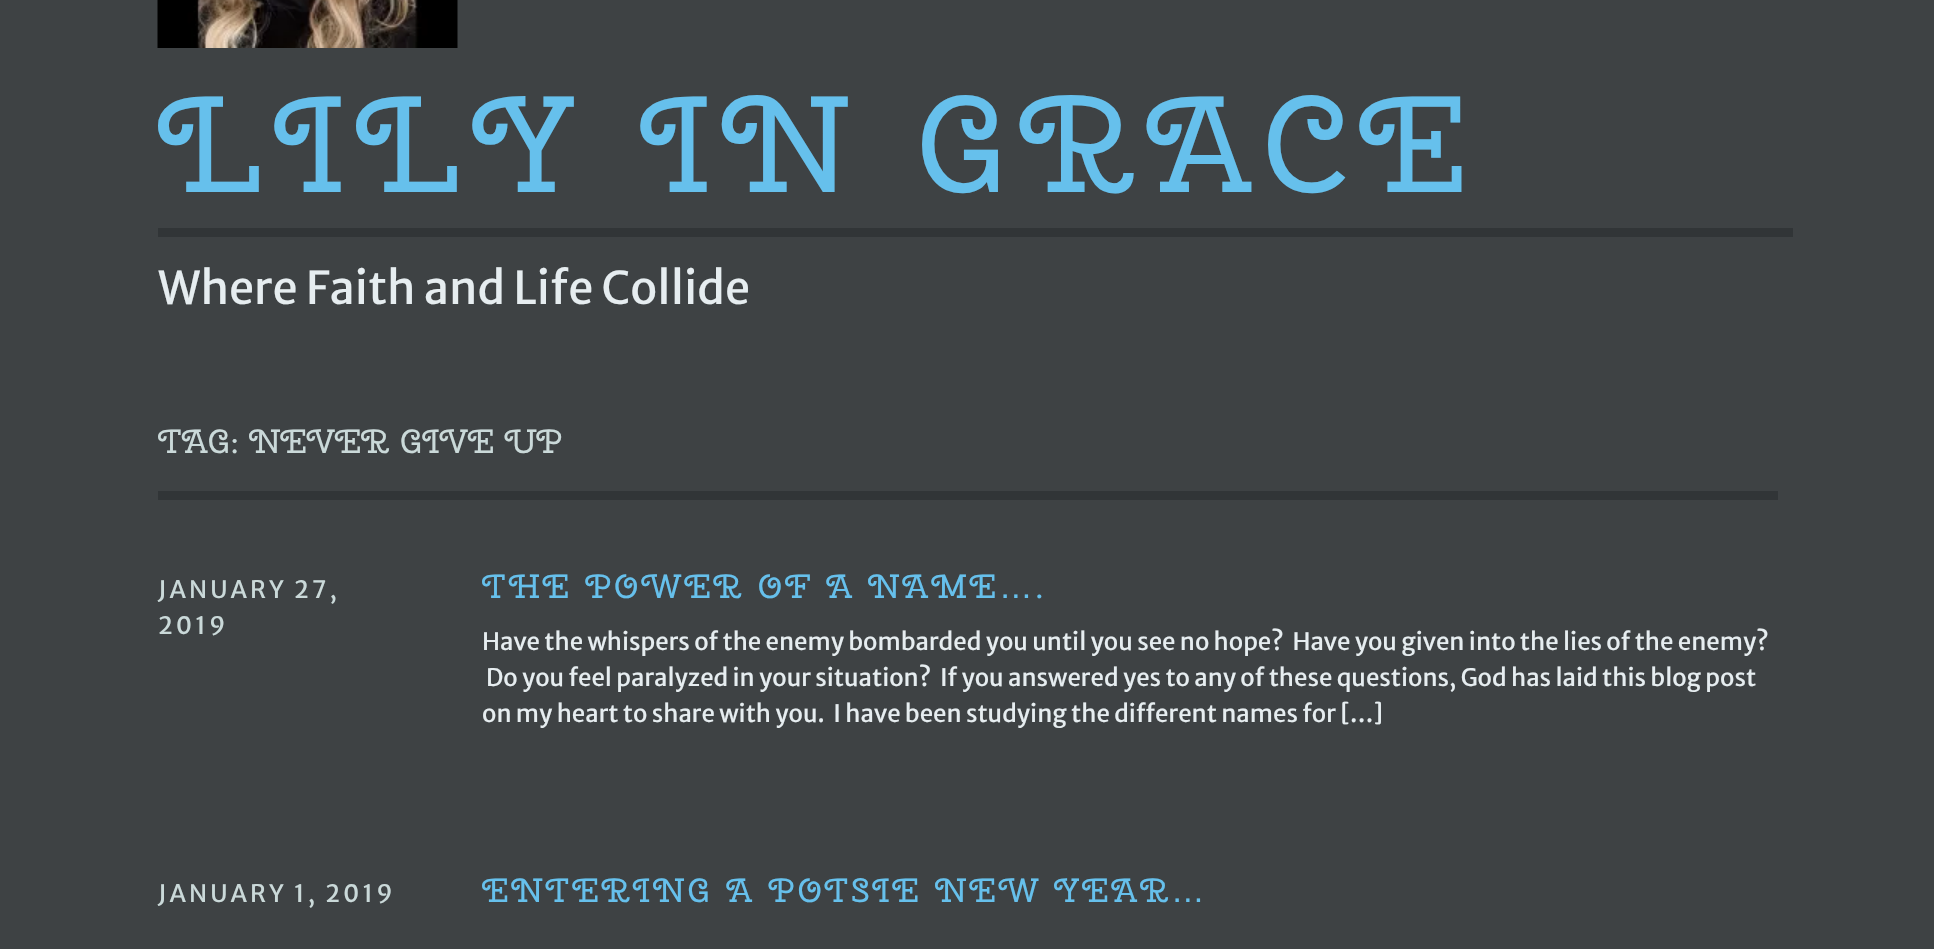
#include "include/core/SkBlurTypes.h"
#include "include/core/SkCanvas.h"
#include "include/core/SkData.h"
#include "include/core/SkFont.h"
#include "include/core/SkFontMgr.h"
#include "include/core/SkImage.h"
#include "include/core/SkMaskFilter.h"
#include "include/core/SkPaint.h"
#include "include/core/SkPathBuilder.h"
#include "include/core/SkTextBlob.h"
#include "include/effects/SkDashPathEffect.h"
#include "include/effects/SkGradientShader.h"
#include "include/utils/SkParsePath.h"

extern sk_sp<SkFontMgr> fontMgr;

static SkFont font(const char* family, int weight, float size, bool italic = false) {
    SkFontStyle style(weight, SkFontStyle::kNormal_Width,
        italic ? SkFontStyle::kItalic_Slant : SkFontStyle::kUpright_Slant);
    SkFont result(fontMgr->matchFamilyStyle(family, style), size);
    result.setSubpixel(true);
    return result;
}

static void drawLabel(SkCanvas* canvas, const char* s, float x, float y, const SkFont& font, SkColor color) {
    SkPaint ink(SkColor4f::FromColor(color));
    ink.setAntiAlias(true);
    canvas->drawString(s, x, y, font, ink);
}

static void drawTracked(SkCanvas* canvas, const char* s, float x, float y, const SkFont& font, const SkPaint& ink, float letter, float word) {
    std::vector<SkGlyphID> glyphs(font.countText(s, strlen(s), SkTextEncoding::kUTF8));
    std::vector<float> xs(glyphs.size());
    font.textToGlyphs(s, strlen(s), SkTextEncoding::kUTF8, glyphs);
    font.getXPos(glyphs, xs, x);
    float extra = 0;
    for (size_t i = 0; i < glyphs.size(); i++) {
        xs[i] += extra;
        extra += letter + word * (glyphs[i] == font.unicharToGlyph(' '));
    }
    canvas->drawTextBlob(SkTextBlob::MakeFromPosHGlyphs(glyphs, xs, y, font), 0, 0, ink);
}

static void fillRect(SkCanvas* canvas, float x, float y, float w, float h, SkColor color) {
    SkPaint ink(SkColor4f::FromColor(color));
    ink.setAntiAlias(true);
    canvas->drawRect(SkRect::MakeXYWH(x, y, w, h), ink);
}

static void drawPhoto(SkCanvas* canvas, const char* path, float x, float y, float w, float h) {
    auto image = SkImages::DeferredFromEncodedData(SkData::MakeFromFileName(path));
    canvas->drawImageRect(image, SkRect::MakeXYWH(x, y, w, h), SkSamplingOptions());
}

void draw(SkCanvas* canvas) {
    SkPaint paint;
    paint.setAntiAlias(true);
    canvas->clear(0xFF3E4244);
    drawPhoto(canvas, "assets/img1.png", 157, 0, 301, 48);
    SkFont font1 = font("Cherry Swash", 400, 136.5f);
    paint.setColor(0xFF66C0EC);
    drawTracked(canvas, "LILY IN GRACE", 158, 192, font1, paint, 12, 0);
    fillRect(canvas, 158, 228, 1635, 9, 0xFF313537);
    SkFont font2 = font("Merriweather Sans", 400, 45.1f);
    drawLabel(canvas, "Where Faith and Life Collide", 158, 304, font2, 0xFFE6EDF0);
    SkFont font3 = font("Cherry Swash", 400, 33.6f);
    drawLabel(canvas, "TAG: NEVER GIVE UP", 158, 453, font3, 0xFFCAD9D9);
    fillRect(canvas, 158, 491, 1620, 9, 0xFF313537);
    SkFont font4 = font("Merriweather Sans", 400, 24);
    paint.setColor(0xFFCAD9D9);
    drawTracked(canvas, "JANUARY 27,", 158, 598, font4, paint, 3, 0);
    drawTracked(canvas, "2019", 158, 634, font4, paint, 3, 0);
    paint.setColor(0xFF66C0EC);
    drawTracked(canvas, "THE POWER OF A", 482, 598, font3, paint, 3, 0);
    drawTracked(canvas, "NAME", 868, 598, font3, paint, 3, 0);
    SkFont font5 = font("Liberation Sans", 400, 33.6f);
    drawTracked(canvas, "…", 999, 598, font5, paint, 3, 0);
    drawTracked(canvas, ".", 1035, 598, font3, paint, 3, 0);
    drawLabel(canvas, "Have the whispers of the enemy bombarded you until you see no hope?  Have you given into the lies of the enemy?", 482, 650, font4, 0xFFE6EDF0);
    drawLabel(canvas, "Do you feel paralyzed in your situation?  If you answered yes to any of these questions, God has laid this blog post", 486, 686, font4, 0xFFE6EDF0);
    drawLabel(canvas, "on my heart to share with you.  I have been studying the different names for […]", 482, 722, font4, 0xFFE6EDF0);
    paint.setColor(0xFFCAD9D9);
    drawTracked(canvas, "JANUARY 1, 2019", 158, 902, font4, paint, 3, 0);
    paint.setColor(0xFF66C0EC);
    drawTracked(canvas, "ENTERING A POTSIE NEW", 482, 902, font3, paint, 3, 0);
    drawTracked(canvas, "YEAR", 1054, 902, font3, paint, 3, 0);
    drawTracked(canvas, "…", 1171, 902, font5, paint, 3, 0);
}
